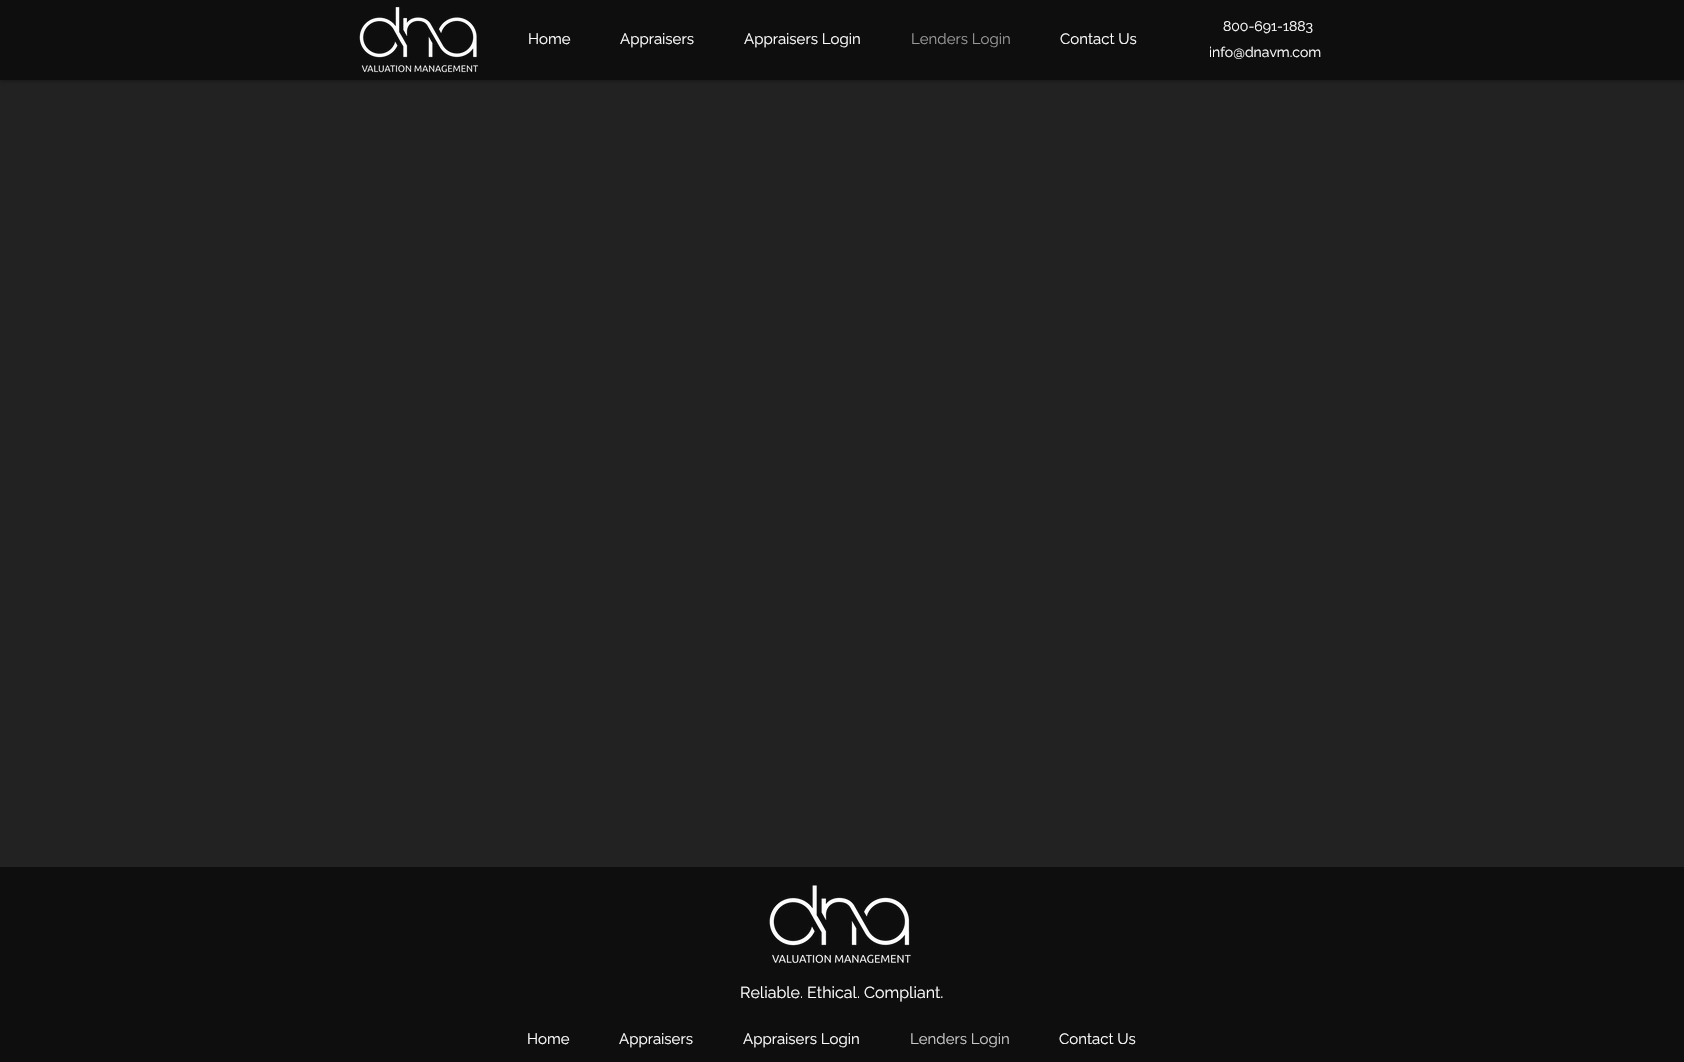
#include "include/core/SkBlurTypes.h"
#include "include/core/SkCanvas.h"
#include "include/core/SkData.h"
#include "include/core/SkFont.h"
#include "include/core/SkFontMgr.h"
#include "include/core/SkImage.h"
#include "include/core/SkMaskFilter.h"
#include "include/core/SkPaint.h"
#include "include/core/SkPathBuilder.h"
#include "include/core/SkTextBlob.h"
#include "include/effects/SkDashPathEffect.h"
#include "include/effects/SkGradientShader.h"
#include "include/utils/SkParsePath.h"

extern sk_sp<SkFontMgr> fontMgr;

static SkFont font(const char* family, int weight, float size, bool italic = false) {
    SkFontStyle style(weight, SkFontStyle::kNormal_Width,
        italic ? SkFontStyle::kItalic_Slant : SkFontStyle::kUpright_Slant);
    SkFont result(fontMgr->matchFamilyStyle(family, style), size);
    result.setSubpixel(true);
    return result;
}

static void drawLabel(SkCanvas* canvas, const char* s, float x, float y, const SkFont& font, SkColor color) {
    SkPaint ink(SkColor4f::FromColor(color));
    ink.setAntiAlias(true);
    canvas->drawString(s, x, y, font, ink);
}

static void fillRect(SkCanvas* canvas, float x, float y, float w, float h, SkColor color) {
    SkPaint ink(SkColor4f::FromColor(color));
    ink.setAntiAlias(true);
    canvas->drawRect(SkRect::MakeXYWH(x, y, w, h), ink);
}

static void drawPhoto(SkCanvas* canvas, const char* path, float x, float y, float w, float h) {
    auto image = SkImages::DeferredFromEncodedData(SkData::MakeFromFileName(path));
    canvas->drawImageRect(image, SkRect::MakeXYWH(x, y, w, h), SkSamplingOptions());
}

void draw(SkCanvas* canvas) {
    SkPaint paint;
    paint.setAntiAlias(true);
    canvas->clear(0xFF222222);
    paint.setColor(0x80000000);
    paint.setMaskFilter(SkMaskFilter::MakeBlur(kNormal_SkBlurStyle, 2.5f));
    canvas->drawRect(SkRect::MakeXYWH(0, 0, 1684, 80), paint);
    paint.setMaskFilter(nullptr);
    fillRect(canvas, 0, 0, 1684, 80, 0xFF0E0E0E);
    drawPhoto(canvas, "assets/img1.png", 359, 6, 120, 67);
    SkFont font1 = font("Raleway", 400, 14);
    drawLabel(canvas, "800-691-1883", 1223, 31, font1, 0xFFFFFFFF);
    SkFont font2 = font("Raleway", 400, 15);
    drawLabel(canvas, "Home", 528, 44, font2, 0xFFFFFFFF);
    drawLabel(canvas, "Appraisers", 620, 44, font2, 0xFFFFFFFF);
    drawLabel(canvas, "Appraisers Login", 744, 44, font2, 0xFFFFFFFF);
    drawLabel(canvas, "Lenders Login", 911, 44, font2, 0xFF999999);
    drawLabel(canvas, "Contact Us", 1060, 44, font2, 0xFFFFFFFF);
    drawLabel(canvas, "info@dnavm.com", 1209, 57, font1, 0xFFFFFFFF);
    fillRect(canvas, 0, 867, 1684, 195, 0xFF0E0E0E);
    drawPhoto(canvas, "assets/img2.png", 769, 885, 142, 79);
    SkFont font3 = font("Raleway", 400, 16);
    drawLabel(canvas, "Reliable. Ethical. Compliant.", 740, 998, font3, 0xFFFFFFFF);
    drawLabel(canvas, "Home", 527, 1044, font2, 0xFFFFFFFF);
    drawLabel(canvas, "Appraisers", 619, 1044, font2, 0xFFFFFFFF);
    drawLabel(canvas, "Appraisers Login", 743, 1044, font2, 0xFFFFFFFF);
    drawLabel(canvas, "Lenders Login", 910, 1044, font2, 0xFFC9C9C9);
    drawLabel(canvas, "Contact Us", 1059, 1044, font2, 0xFFFFFFFF);
}
